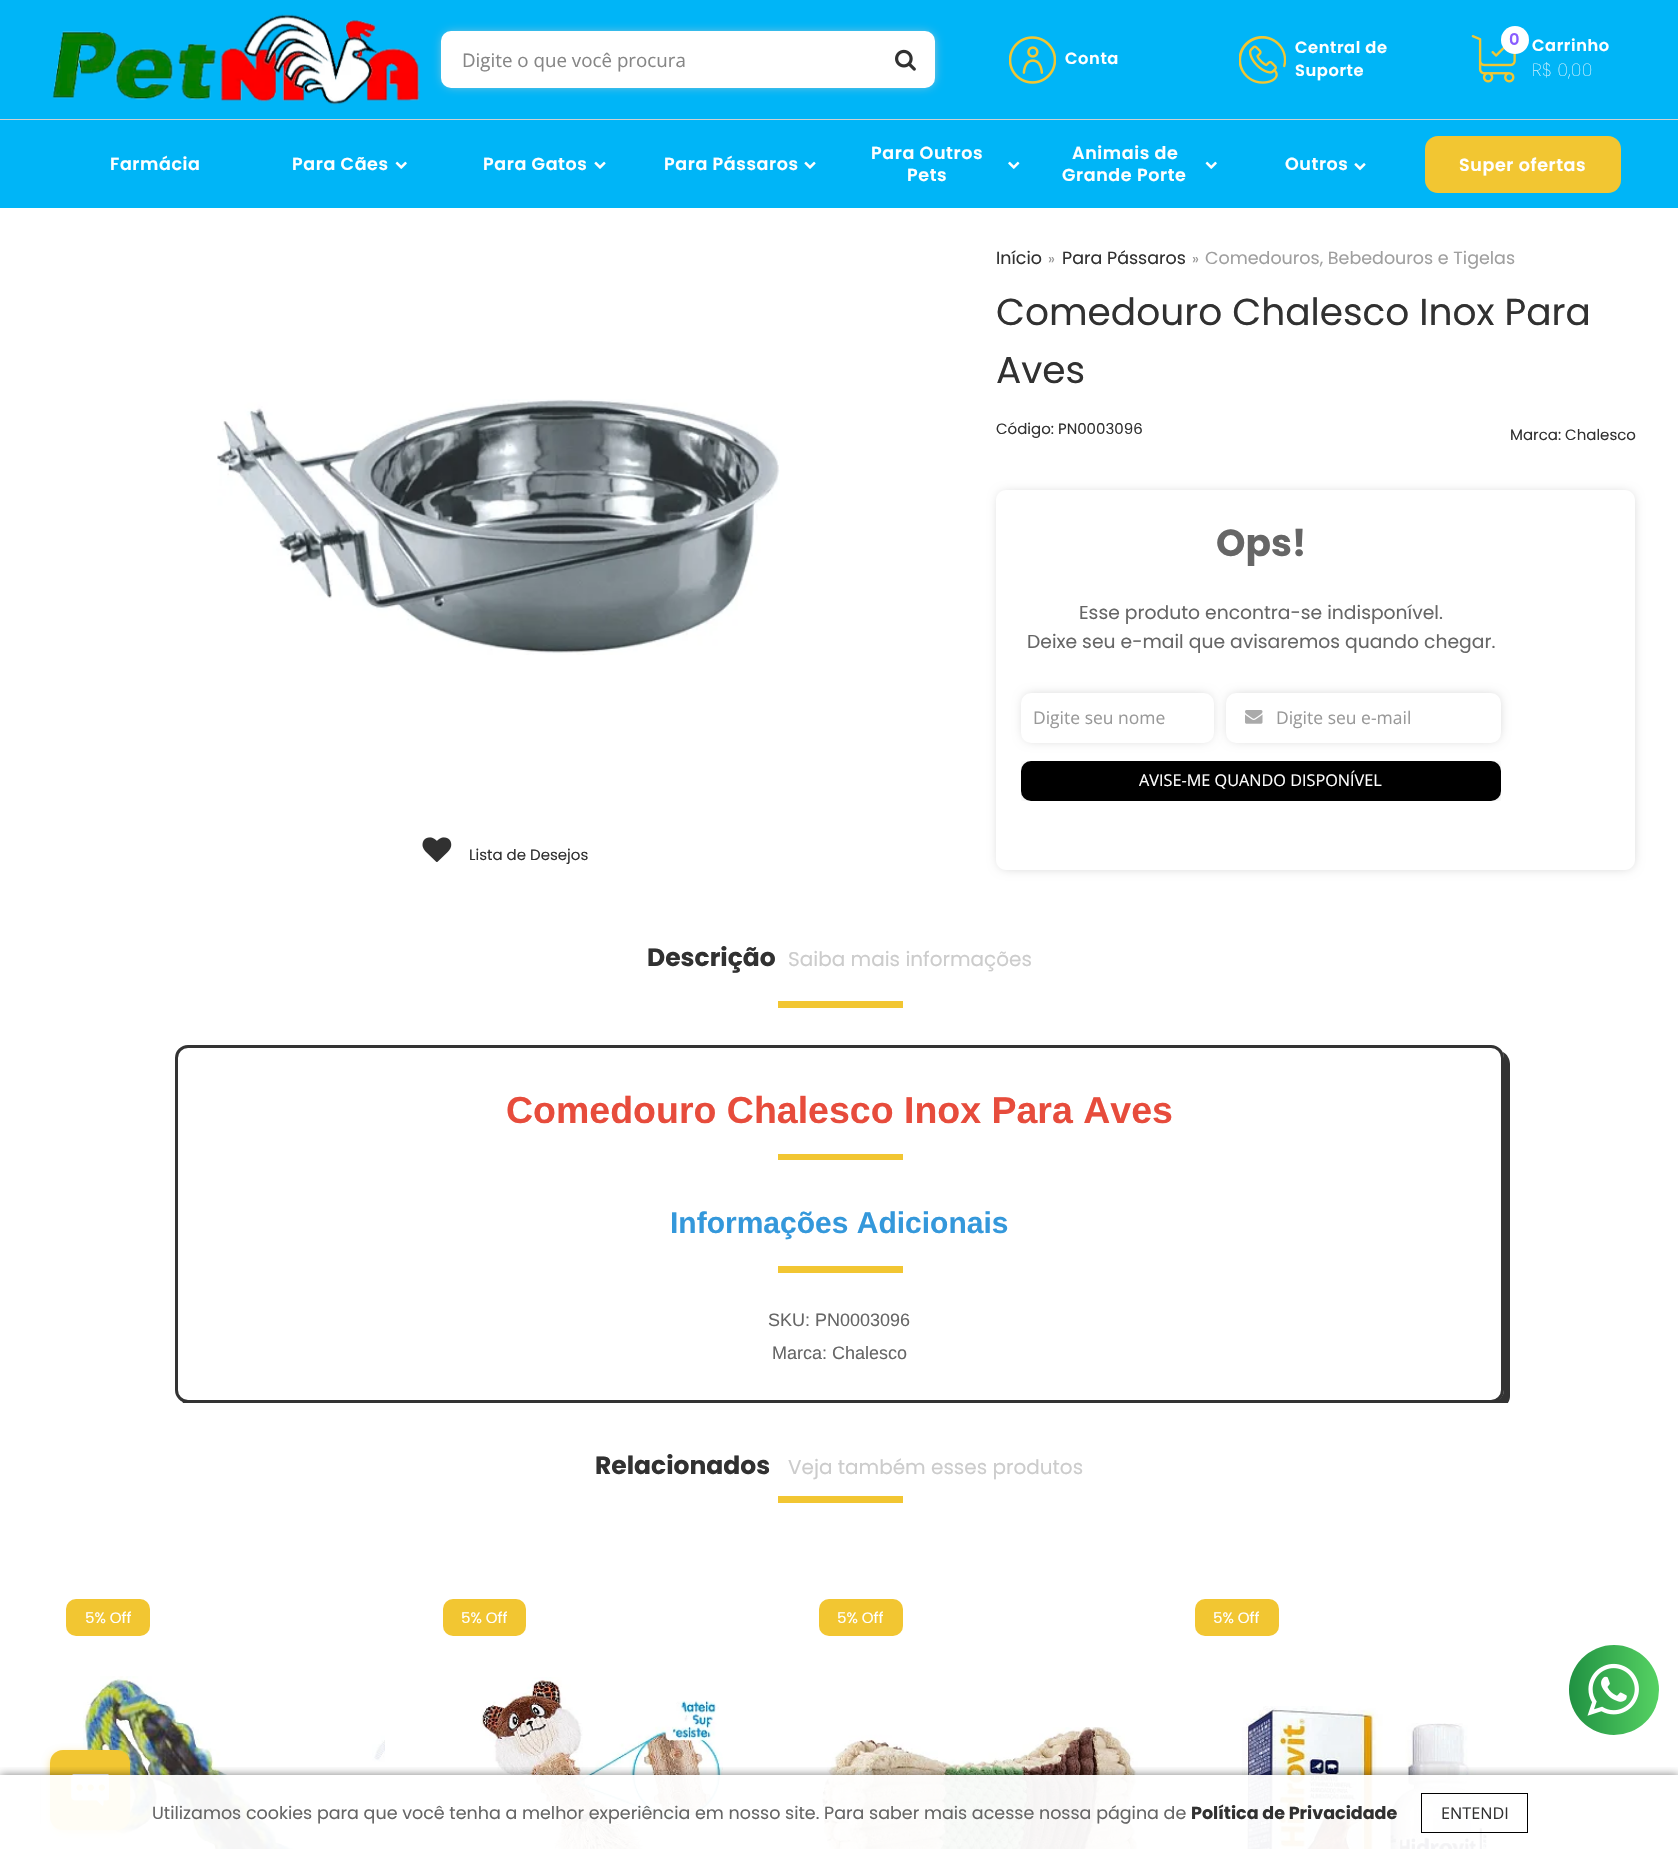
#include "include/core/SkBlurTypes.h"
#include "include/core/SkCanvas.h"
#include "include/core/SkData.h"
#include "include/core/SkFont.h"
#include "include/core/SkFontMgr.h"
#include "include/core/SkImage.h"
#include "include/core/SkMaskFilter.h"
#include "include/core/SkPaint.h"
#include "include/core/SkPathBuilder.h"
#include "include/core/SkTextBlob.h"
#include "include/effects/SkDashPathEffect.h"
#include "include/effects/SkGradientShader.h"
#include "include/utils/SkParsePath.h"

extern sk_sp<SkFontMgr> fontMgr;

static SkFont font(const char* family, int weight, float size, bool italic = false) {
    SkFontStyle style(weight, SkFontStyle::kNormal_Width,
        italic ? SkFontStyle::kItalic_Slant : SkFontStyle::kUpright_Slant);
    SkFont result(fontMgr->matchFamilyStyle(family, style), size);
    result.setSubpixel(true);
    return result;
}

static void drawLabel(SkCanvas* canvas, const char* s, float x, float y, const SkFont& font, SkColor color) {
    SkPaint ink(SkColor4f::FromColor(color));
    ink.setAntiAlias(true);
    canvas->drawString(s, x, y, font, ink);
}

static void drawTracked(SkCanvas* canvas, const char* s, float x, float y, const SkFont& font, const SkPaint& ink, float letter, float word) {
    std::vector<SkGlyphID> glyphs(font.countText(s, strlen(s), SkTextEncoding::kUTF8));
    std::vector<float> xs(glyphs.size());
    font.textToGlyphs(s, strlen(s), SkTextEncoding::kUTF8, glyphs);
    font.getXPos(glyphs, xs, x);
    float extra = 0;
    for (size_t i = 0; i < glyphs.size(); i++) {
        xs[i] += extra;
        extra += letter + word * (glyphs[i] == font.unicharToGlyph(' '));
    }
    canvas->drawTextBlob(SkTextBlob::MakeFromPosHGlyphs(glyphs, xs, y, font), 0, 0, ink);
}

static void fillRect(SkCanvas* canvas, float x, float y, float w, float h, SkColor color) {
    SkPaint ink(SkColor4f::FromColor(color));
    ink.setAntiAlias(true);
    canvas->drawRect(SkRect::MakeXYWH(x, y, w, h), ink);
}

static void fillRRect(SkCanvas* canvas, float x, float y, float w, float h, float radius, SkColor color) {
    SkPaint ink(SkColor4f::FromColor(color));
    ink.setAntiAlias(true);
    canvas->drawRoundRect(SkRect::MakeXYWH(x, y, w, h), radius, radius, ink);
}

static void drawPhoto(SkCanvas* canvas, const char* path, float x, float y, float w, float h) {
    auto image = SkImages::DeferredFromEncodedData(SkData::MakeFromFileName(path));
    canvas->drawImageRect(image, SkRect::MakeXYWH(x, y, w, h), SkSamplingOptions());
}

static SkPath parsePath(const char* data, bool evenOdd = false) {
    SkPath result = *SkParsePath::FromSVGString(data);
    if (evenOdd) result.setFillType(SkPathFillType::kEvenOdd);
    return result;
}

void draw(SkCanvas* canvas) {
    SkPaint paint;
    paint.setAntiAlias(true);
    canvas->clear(0xFFFFFFFF);
    fillRect(canvas, 0, 0, 1678, 208, 0xFF00B5F7);
    drawPhoto(canvas, "assets/img1.png", 52, 14, 368, 91);
    paint.setColor(0xFFCCCCCC);
    paint.setMaskFilter(SkMaskFilter::MakeBlur(kNormal_SkBlurStyle, 5.5f));
    canvas->drawRoundRect(SkRect::MakeXYWH(444, 34, 489, 51), 8, 8, paint);
    paint.setMaskFilter(nullptr);
    fillRRect(canvas, 441, 31, 494, 57, 10, 0xFFFFFFFF);
    SkFont font1 = font("Open Sans", 400, 18.75f);
    drawLabel(canvas, "Digite o que você procura", 462, 67, font1, 0xFF868686);
    drawPhoto(canvas, "assets/img2.png", 895, 49, 21, 22);
    drawPhoto(canvas, "assets/img3.png", 1009, 36, 47, 48);
    SkFont font2 = font("Poppins", 600, 16.25f);
    paint.setColor(0xFFFFFFFF);
    drawTracked(canvas, "Conta", 1065, 64, font2, paint, 0.6f, 0);
    drawPhoto(canvas, "assets/img4.png", 1239, 36, 47, 48);
    drawTracked(canvas, "Central de", 1295, 53, font2, paint, 0.6f, 0);
    drawTracked(canvas, "Suporte", 1295, 76, font2, paint, 0.6f, 0);
    drawPhoto(canvas, "assets/img5.png", 1471, 35, 45, 48);
    canvas->drawCircle(1515, 40, 14, paint);
    paint.setColor(0xFF895CFF);
    drawTracked(canvas, "0", 1509, 45, font2, paint, 0.6f, 0);
    paint.setColor(0xFFFFFFFF);
    drawTracked(canvas, "Carrinho", 1532, 51, font2, paint, 0.6f, 0);
    SkFont font3 = font("Poppins", 200, 17.5f);
    drawTracked(canvas, "R$ 0,00", 1532, 76, font3, paint, 0.6f, 0);
    fillRect(canvas, 0, 119, 1678, 1, 0xFFD0D0D0);
    SkFont font4 = font("Poppins", 600, 17.5f);
    drawTracked(canvas, "Farmácia", 110, 170, font4, paint, 0.6f, 0);
    drawTracked(canvas, "Para Cães", 292, 170, font4, paint, 0.6f, 0);
    drawPhoto(canvas, "assets/img6.png", 395, 161, 12, 8);
    drawTracked(canvas, "Para Gatos", 483, 170, font4, paint, 0.6f, 0);
    drawPhoto(canvas, "assets/img7.png", 594, 161, 12, 8);
    drawTracked(canvas, "Para Pássaros", 664, 170, font4, paint, 0.6f, 0);
    drawPhoto(canvas, "assets/img7.png", 804, 161, 12, 8);
    drawTracked(canvas, "Para Outros", 871, 159, font4, paint, 0.6f, 0);
    drawTracked(canvas, "Pets", 907, 181, font4, paint, 0.6f, 0);
    drawPhoto(canvas, "assets/img8.png", 1008, 161, 12, 8);
    drawTracked(canvas, "Animais de", 1072, 159, font4, paint, 0.6f, 0);
    drawTracked(canvas, "Grande Porte", 1062, 181, font4, paint, 0.6f, 0);
    drawPhoto(canvas, "assets/img6.png", 1205, 161, 12, 8);
    drawTracked(canvas, "Outros", 1285, 170, font4, paint, 0.6f, 0);
    drawPhoto(canvas, "assets/img9.png", 1354, 163, 12, 8);
    fillRRect(canvas, 1425, 136, 196, 57, 13, 0xFFF2C632);
    drawTracked(canvas, "Super ofertas", 1459, 171, font4, paint, 0.6f, 0);
    SkFont font5 = font("Poppins", 400, 17.5f);
    drawLabel(canvas, "Início", 996, 264, font5, 0xFF313131);
    SkFont font6 = font("Poppins", 400, 15);
    drawLabel(canvas, "»", 1048, 264, font6, 0xFF999999);
    drawLabel(canvas, "Para Pássaros", 1062, 264, font5, 0xFF313131);
    drawLabel(canvas, "»", 1192, 264, font6, 0xFF999999);
    drawLabel(canvas, "Comedouros, Bebedouros e Tigelas", 1205, 264, font5, 0xFF9F9F9F);
    SkFont font7 = font("Poppins", 400, 37.5f);
    drawLabel(canvas, "Comedouro Chalesco Inox Para", 996, 325, font7, 0xFF313131);
    drawLabel(canvas, "Aves", 996, 383, font7, 0xFF313131);
    drawLabel(canvas, "Código: PN0003096", 996, 434, font6, 0xFF313131);
    drawLabel(canvas, "Marca: Chalesco", 1510, 440, font6, 0xFF313131);
    canvas->save();
    canvas->clipPath(parsePath("M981 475H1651V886H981ZM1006 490H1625C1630.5 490 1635 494.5 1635 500V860C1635 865.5 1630.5 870 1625 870H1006C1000.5 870 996 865.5 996 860V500C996 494.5 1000.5 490 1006 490Z", true), true);
    paint.setColor(0xFFCCCCCC);
    paint.setMaskFilter(SkMaskFilter::MakeBlur(kNormal_SkBlurStyle, 5.5f));
    canvas->drawRoundRect(SkRect::MakeXYWH(999, 493, 634, 375), 8, 8, paint);
    paint.setMaskFilter(nullptr);
    canvas->restore();
    SkFont font8 = font("Poppins", 700, 37.5f);
    drawLabel(canvas, "Ops!", 1216, 556, font8, 0xFF666666);
    SkFont font9 = font("Poppins", 400, 18.75f);
    drawLabel(canvas, "Esse produto encontra-se indisponível.", 1079, 619, font9, 0xFF666666);
    drawLabel(canvas, "Deixe seu e-mail que avisaremos quando chegar.", 1027, 648, font9, 0xFF666666);
    paint.setMaskFilter(SkMaskFilter::MakeBlur(kNormal_SkBlurStyle, 5.5f));
    canvas->drawRoundRect(SkRect::MakeXYWH(1024, 695, 187, 45), 8, 8, paint);
    paint.setMaskFilter(nullptr);
    fillRRect(canvas, 1021, 693, 193, 50, 10, 0xFFFFFFFF);
    SkFont font10 = font("Open Sans", 400, 17.5f);
    drawLabel(canvas, "Digite seu nome", 1033, 724, font10, 0xFF999999);
    paint.setMaskFilter(SkMaskFilter::MakeBlur(kNormal_SkBlurStyle, 5.5f));
    canvas->drawRoundRect(SkRect::MakeXYWH(1229, 695, 270, 45), 8, 8, paint);
    paint.setMaskFilter(nullptr);
    fillRRect(canvas, 1226, 693, 275, 50, 10, 0xFFFFFFFF);
    drawPhoto(canvas, "assets/img10.png", 1245, 710, 18, 14);
    drawLabel(canvas, "Digite seu e-mail", 1276, 724, font10, 0xFF999999);
    canvas->save();
    canvas->clipRect(SkRect::MakeXYWH(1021, 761, 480, 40));
    paint.setMaskFilter(SkMaskFilter::MakeBlur(kNormal_SkBlurStyle, 5.5f));
    canvas->drawRoundRect(SkRect::MakeXYWH(1024, 764, 475, 35), 8, 8, paint);
    paint.setMaskFilter(nullptr);
    canvas->restore();
    fillRRect(canvas, 1021, 761, 480, 40, 10, 0xFF000000);
    SkFont font11 = font("Open Sans", 400, 16.25f);
    drawLabel(canvas, "AVISE-ME QUANDO DISPONÍVEL", 1139, 786, font11, 0xFFFFFFFF);
    drawPhoto(canvas, "assets/img11.png", 217, 399, 563, 256);
    drawPhoto(canvas, "assets/img12.png", 422, 837, 30, 25);
    drawLabel(canvas, "Lista de Desejos", 469, 860, font6, 0xFF313131);
    SkFont font12 = font("Poppins", 700, 25);
    drawLabel(canvas, "Descrição", 647, 966, font12, 0xFF313131);
    SkFont font13 = font("Poppins", 400, 20);
    drawLabel(canvas, "Saiba mais informações", 788, 966, font13, 0xFFCCCCCC);
    fillRect(canvas, 778, 1001, 125, 7, 0xFFF2C632);
    canvas->save();
    canvas->clipRect(SkRect::MakeXYWH(44, 920, 1592, 483));
    paint.setColor(0xFF333333);
    canvas->drawPath(parsePath("M182 1401C184 1406 189 1409 194 1409H1497C1504 1409 1510 1403 1510 1396V1064C1510 1059 1507 1054 1503 1052C1503 1054 1504 1056 1504 1058V1390C1504 1397 1498 1402 1491 1402H188C186 1402 184 1402 182 1401Z"), paint);
    canvas->restore();
    paint.setColor(0xFFFFFFFF);
    canvas->drawRoundRect(SkRect::MakeXYWH(176.5f, 1046.5f, 1326, 355), 11.5f, 11.5f, paint);
    paint.setStroke(true);
    paint.setStrokeWidth(3);
    paint.setColor(0xFF333333);
    canvas->drawRoundRect(SkRect::MakeXYWH(176.5f, 1046.5f, 1326, 355), 11.5f, 11.5f, paint);
    SkFont font14 = font("Liberation Sans", 700, 37.5f);
    drawLabel(canvas, "Comedouro Chalesco Inox Para Aves", 506, 1123, font14, 0xFFE74C3C);
    fillRect(canvas, 778, 1154, 125, 6, 0xFFF2C632);
    SkFont font15 = font("Liberation Sans", 700, 30);
    drawLabel(canvas, "Informações Adicionais", 670, 1233, font15, 0xFF3498DB);
    fillRect(canvas, 778, 1266, 125, 7, 0xFFF2C632);
    SkFont font16 = font("Liberation Sans", 400, 18);
    drawLabel(canvas, "SKU: PN0003096", 768, 1326, font16, 0xFF666666);
    drawLabel(canvas, "Marca: Chalesco", 772, 1359, font16, 0xFF666666);
    drawLabel(canvas, "Relacionados", 595, 1474, font12, 0xFF313131);
    drawLabel(canvas, "Veja também esses produtos", 788, 1474, font13, 0xFFCCCCCC);
    fillRect(canvas, 778, 1496, 125, 7, 0xFFF2C632);
    fillRRect(canvas, 66, 1599, 84, 37, 10, 0xFFF2C632);
    drawLabel(canvas, "5% Off", 85, 1623, font6, 0xFFFFFFFF);
    drawPhoto(canvas, "assets/img13.png", 83, 1676, 302, 173);
    fillRRect(canvas, 443, 1599, 83, 37, 10, 0xFFF2C632);
    drawLabel(canvas, "5% Off", 461, 1623, font6, 0xFFFFFFFF);
    drawPhoto(canvas, "assets/img14.png", 480, 1677, 243, 172);
    fillRRect(canvas, 819, 1599, 84, 37, 10, 0xFFF2C632);
    drawLabel(canvas, "5% Off", 837, 1623, font6, 0xFFFFFFFF);
    drawPhoto(canvas, "assets/img15.png", 819, 1727, 319, 122);
    fillRRect(canvas, 1195, 1599, 84, 37, 10, 0xFFF2C632);
    drawLabel(canvas, "5% Off", 1213, 1623, font6, 0xFFFFFFFF);
    drawPhoto(canvas, "assets/img16.png", 1242, 1706, 251, 143);
    paint.setStroke(false);
    {
        const SkColor colors[] = {0xFF209142, 0xFF56D263};
        const float stops[] = {0, 1};
        const SkPoint ends[] = {{1569, 1690}, {1659, 1690}};
        paint.setShader(SkGradientShader::MakeLinear(ends, colors, stops, 2, SkTileMode::kClamp));
        paint.setAlpha(255);
    }
    canvas->drawCircle(1614, 1690, 45, paint);
    drawPhoto(canvas, "assets/img17.png", 1587, 1663, 52, 53);
    paint.setShader(nullptr);
    paint.setColor(0xFFF2C632);
    paint.setMaskFilter(SkMaskFilter::MakeBlur(kNormal_SkBlurStyle, 5.5f));
    canvas->drawRoundRect(SkRect::MakeXYWH(53, 1756, 75, 75), 10, 10, paint);
    paint.setMaskFilter(nullptr);
    fillRRect(canvas, 50, 1750, 80, 80, 13, 0xFFF2C632);
    drawPhoto(canvas, "assets/img18.png", 71, 1774, 38, 32);
    canvas->save();
    canvas->clipRect(SkRect::MakeXYWH(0, 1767, 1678, 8));
    paint.setColor(0x80000000);
    paint.setMaskFilter(SkMaskFilter::MakeBlur(kNormal_SkBlurStyle, 4.5f));
    canvas->drawRect(SkRect::MakeXYWH(0, 1775, 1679, 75), paint);
    paint.setMaskFilter(nullptr);
    canvas->restore();
    fillRect(canvas, 41, 1775, 1452, 74, 0xF2FFFFFF);
    drawLabel(canvas, "Utilizamos cookies para que você tenha a melhor experiência em nosso site. Para saber mais acesse nossa página de", 152, 1819, font5, 0xFF666666);
    SkFont font17 = font("Poppins", 700, 17.5f);
    drawLabel(canvas, "Política de Privacidade", 1191, 1819, font17, 0xFF313131);
    paint.setStroke(true);
    paint.setStrokeWidth(1);
    paint.setColor(0xFF000000);
    canvas->drawRect(SkRect::MakeXYWH(1421.5f, 1793.5f, 106, 39), paint);
    drawLabel(canvas, "ENTENDI", 1441, 1819, font11, 0xFF313131);
}
